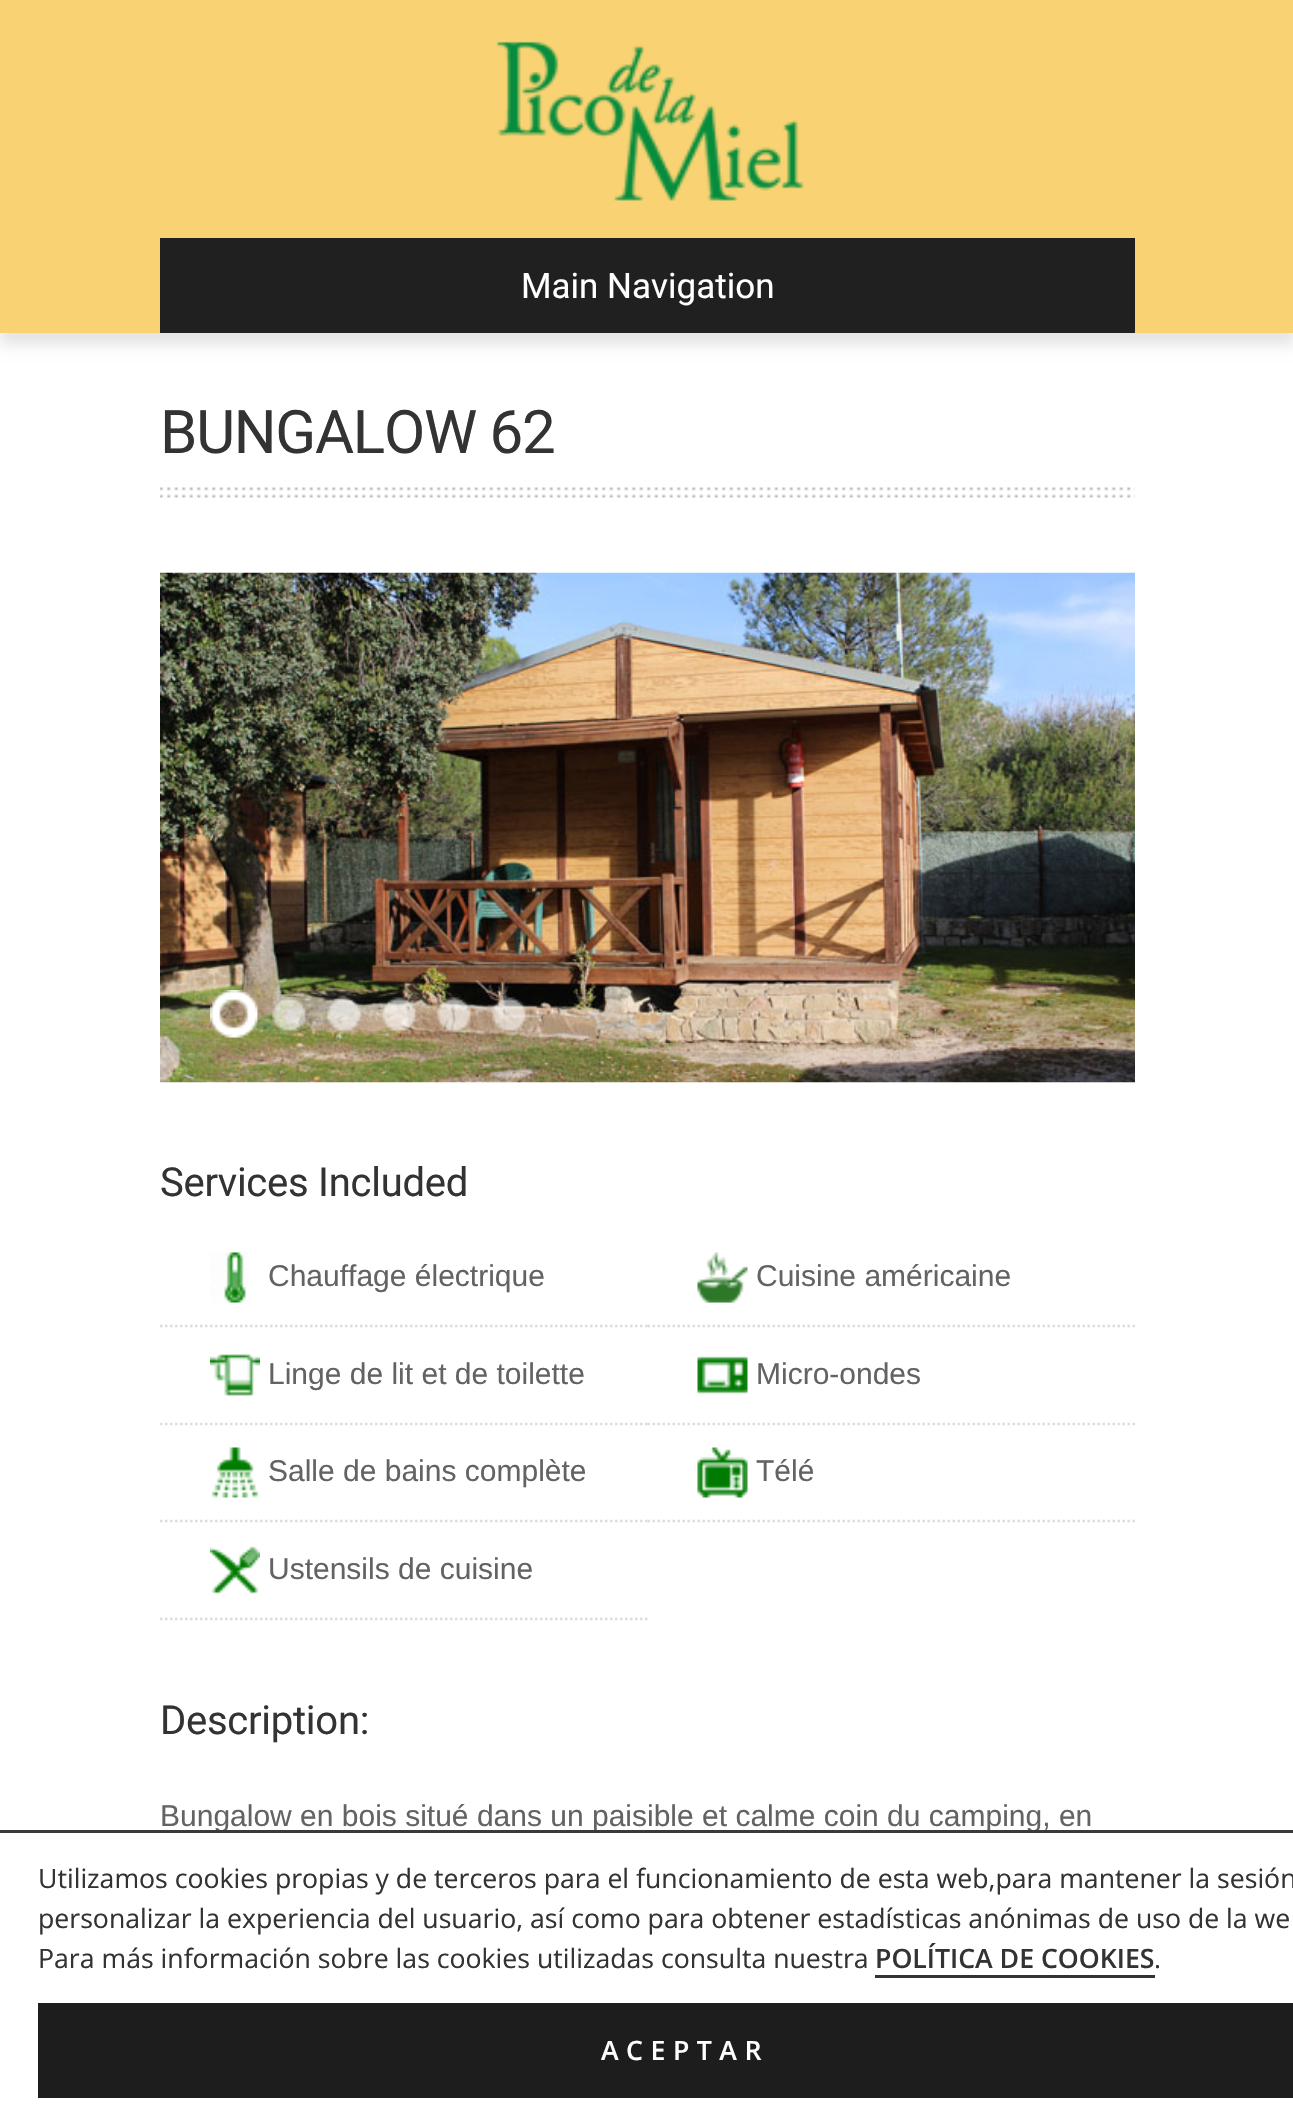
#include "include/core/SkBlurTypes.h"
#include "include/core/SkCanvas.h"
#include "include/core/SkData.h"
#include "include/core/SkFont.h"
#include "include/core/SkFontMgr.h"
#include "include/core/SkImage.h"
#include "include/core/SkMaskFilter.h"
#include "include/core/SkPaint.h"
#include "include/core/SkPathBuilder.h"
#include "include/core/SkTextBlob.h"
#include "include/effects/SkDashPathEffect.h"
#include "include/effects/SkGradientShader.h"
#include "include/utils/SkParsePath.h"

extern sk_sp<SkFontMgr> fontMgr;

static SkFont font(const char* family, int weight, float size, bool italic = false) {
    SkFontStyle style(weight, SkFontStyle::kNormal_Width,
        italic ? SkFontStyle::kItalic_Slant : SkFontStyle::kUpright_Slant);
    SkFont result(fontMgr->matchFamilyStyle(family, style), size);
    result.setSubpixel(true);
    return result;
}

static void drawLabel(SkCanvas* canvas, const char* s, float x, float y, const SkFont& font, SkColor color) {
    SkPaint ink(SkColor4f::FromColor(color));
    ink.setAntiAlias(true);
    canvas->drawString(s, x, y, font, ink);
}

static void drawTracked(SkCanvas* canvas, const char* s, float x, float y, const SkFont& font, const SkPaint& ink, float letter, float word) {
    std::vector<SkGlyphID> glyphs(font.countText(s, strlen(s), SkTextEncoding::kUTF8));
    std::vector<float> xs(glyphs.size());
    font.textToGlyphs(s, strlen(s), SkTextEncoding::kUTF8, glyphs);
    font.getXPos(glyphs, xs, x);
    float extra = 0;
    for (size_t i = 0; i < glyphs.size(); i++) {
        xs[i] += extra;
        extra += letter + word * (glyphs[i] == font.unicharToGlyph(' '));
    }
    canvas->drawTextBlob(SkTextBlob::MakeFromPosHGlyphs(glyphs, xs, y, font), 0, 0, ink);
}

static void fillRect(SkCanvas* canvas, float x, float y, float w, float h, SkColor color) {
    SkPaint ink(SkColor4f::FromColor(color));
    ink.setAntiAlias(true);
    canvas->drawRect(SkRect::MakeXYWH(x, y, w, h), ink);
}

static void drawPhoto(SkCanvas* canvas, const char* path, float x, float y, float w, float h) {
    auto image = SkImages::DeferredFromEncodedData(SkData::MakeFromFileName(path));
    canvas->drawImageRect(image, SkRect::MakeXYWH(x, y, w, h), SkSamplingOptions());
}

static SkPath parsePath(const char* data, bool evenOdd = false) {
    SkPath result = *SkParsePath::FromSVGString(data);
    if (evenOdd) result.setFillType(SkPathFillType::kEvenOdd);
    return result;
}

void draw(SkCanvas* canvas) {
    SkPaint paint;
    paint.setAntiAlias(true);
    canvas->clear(0xFFFFFFFF);
    paint.setColor(0x1A000000);
    paint.setMaskFilter(SkMaskFilter::MakeBlur(kNormal_SkBlurStyle, 6));
    canvas->drawRect(SkRect::MakeXYWH(0, 13, 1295, 332), paint);
    paint.setMaskFilter(nullptr);
    fillRect(canvas, 0, 0, 1293, 333, 0xFFF9D373);
    drawPhoto(canvas, "assets/img1.png", 496, 41, 308, 160);
    fillRect(canvas, 160, 238, 975, 95, 0xFF202020);
    SkFont font1 = font("Roboto", 400, 35);
    drawLabel(canvas, "Main Navigation", 521, 298, font1, 0xFFFFFFFF);
    drawPhoto(canvas, "assets/img2.png", 160, 487, 975, 11);
    SkFont font2 = font("Roboto", 400, 60);
    paint.setColor(0xFF333333);
    drawTracked(canvas, "BUNGALOW 62", 160, 453, font2, paint, -1.25f, 0);
    drawPhoto(canvas, "assets/img3.png", 160, 572, 975, 511);
    drawPhoto(canvas, "assets/img4.png", 210, 990, 48, 48);
    drawPhoto(canvas, "assets/img5.png", 271, 997, 35, 36);
    drawPhoto(canvas, "assets/img6.png", 327, 997, 34, 36);
    drawPhoto(canvas, "assets/img7.png", 382, 997, 34, 36);
    drawPhoto(canvas, "assets/img8.png", 437, 997, 34, 36);
    drawPhoto(canvas, "assets/img9.png", 492, 997, 34, 36);
    SkFont font3 = font("Roboto", 400, 40);
    drawTracked(canvas, "Services Included", 160, 1196, font3, paint, -0.25f, 0);
    paint.setStroke(true);
    paint.setStrokeWidth(2.5f);
    paint.setColor(0xFFDDDDDD);
    paint.setPathEffect(SkDashPathEffect::Make({{2.5f, 2.5f}}, 0));
    canvas->drawPath(parsePath("M160 1326H647.5"), paint);
    paint.setPathEffect(nullptr);
    drawPhoto(canvas, "assets/img10.png", 210, 1252, 40, 51);
    SkFont font4 = font("Liberation Sans", 400, 30);
    drawLabel(canvas, "Chauffage électrique", 268, 1286, font4, 0xFF636363);
    paint.setPathEffect(SkDashPathEffect::Make({{2.5f, 2.5f}}, 0));
    canvas->drawPath(parsePath("M647.5 1326H1135"), paint);
    paint.setPathEffect(nullptr);
    drawPhoto(canvas, "assets/img11.png", 697, 1252, 51, 51);
    drawLabel(canvas, "Cuisine américaine", 756, 1286, font4, 0xFF636363);
    paint.setPathEffect(SkDashPathEffect::Make({{2.5f, 2.5f}}, 0));
    canvas->drawPath(parsePath("M160 1424H647.5"), paint);
    paint.setPathEffect(nullptr);
    drawPhoto(canvas, "assets/img12.png", 210, 1354, 50, 42);
    drawLabel(canvas, "Linge de lit et de toilette", 268, 1384, font4, 0xFF636363);
    paint.setPathEffect(SkDashPathEffect::Make({{2.5f, 2.5f}}, 0));
    canvas->drawPath(parsePath("M647.5 1424H1135"), paint);
    paint.setPathEffect(nullptr);
    drawPhoto(canvas, "assets/img13.png", 697, 1356, 51, 38);
    drawLabel(canvas, "Micro-ondes", 756, 1384, font4, 0xFF636363);
    paint.setPathEffect(SkDashPathEffect::Make({{2.5f, 2.5f}}, 0));
    canvas->drawPath(parsePath("M160 1521H647.5"), paint);
    paint.setPathEffect(nullptr);
    drawPhoto(canvas, "assets/img14.png", 211, 1447, 48, 51);
    drawLabel(canvas, "Salle de bains complète", 268, 1481, font4, 0xFF636363);
    paint.setPathEffect(SkDashPathEffect::Make({{2.5f, 2.5f}}, 0));
    canvas->drawPath(parsePath("M647.5 1521H1135"), paint);
    paint.setPathEffect(nullptr);
    drawPhoto(canvas, "assets/img15.png", 697, 1447, 51, 51);
    drawLabel(canvas, "Télé", 756, 1481, font4, 0xFF636363);
    paint.setPathEffect(SkDashPathEffect::Make({{2.5f, 2.5f}}, 0));
    canvas->drawPath(parsePath("M160 1619H647.5"), paint);
    paint.setPathEffect(nullptr);
    drawPhoto(canvas, "assets/img16.png", 210, 1546, 50, 48);
    drawLabel(canvas, "Ustensils de cuisine", 268, 1579, font4, 0xFF636363);
    paint.setStroke(false);
    paint.setColor(0xFF333333);
    drawTracked(canvas, "Description:", 160, 1734, font3, paint, -0.25f, 0);
    drawLabel(canvas, "Bungalow en bois situé dans un paisible et calme coin du camping, en", 160, 1826, font4, 0xFF636363);
    fillRect(canvas, 0, 1830, 1293, 3, 0xFF3B3939);
    SkFont font5 = font("Open Sans", 400, 26.65f);
    drawLabel(canvas, "Utilizamos cookies propias y de terceros para el funcionamiento de esta web,para mantener la sesión", 38, 1888, font5, 0xFF333333);
    drawLabel(canvas, "personalizar la experiencia del usuario, así como para obtener estadísticas anónimas de uso de la we", 38, 1928, font5, 0xFF333333);
    drawLabel(canvas, "Para más información sobre las cookies utilizadas consulta nuestra", 38, 1968, font5, 0xFF333333);
    SkFont font6 = font("Open Sans", 600, 26.65f);
    drawLabel(canvas, "POLÍTICA DE COOKIES", 875, 1968, font6, 0xFF333333);
    fillRect(canvas, 875, 1975, 280, 3, 0xFF333333);
    drawLabel(canvas, ".", 1154, 1968, font5, 0xFF333333);
    fillRect(canvas, 38, 2003, 1255, 95, 0xFF1D1D1D);
    paint.setColor(0xFFFFFFFF);
    drawTracked(canvas, "ACEPTAR", 601, 2060, font6, paint, 7.5f, 0);
}
